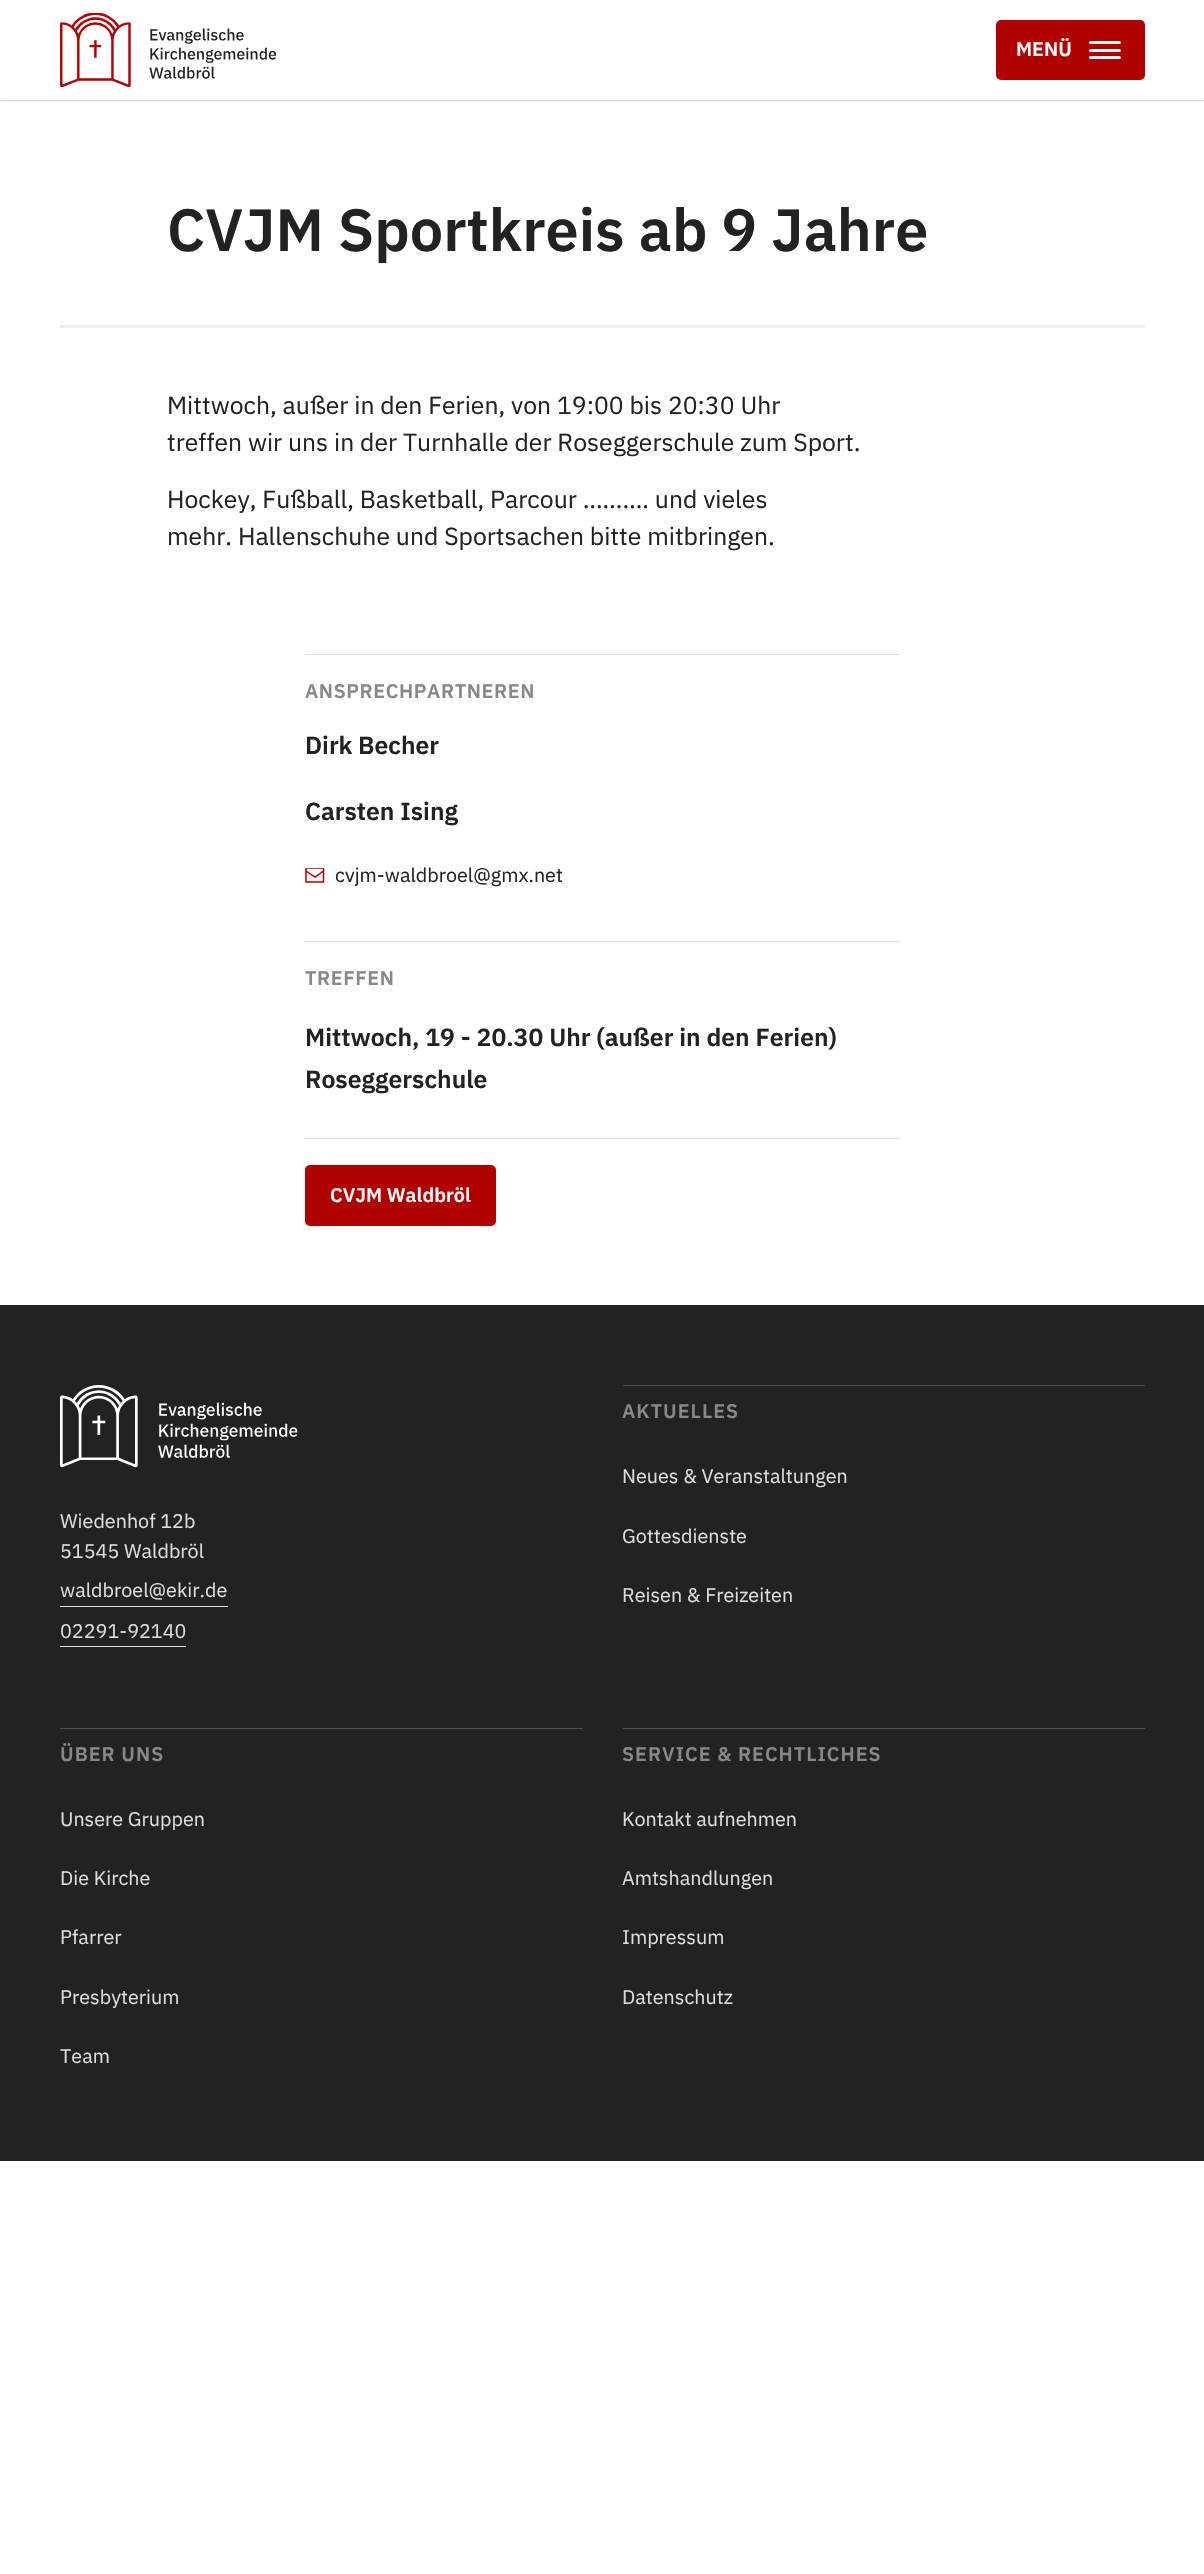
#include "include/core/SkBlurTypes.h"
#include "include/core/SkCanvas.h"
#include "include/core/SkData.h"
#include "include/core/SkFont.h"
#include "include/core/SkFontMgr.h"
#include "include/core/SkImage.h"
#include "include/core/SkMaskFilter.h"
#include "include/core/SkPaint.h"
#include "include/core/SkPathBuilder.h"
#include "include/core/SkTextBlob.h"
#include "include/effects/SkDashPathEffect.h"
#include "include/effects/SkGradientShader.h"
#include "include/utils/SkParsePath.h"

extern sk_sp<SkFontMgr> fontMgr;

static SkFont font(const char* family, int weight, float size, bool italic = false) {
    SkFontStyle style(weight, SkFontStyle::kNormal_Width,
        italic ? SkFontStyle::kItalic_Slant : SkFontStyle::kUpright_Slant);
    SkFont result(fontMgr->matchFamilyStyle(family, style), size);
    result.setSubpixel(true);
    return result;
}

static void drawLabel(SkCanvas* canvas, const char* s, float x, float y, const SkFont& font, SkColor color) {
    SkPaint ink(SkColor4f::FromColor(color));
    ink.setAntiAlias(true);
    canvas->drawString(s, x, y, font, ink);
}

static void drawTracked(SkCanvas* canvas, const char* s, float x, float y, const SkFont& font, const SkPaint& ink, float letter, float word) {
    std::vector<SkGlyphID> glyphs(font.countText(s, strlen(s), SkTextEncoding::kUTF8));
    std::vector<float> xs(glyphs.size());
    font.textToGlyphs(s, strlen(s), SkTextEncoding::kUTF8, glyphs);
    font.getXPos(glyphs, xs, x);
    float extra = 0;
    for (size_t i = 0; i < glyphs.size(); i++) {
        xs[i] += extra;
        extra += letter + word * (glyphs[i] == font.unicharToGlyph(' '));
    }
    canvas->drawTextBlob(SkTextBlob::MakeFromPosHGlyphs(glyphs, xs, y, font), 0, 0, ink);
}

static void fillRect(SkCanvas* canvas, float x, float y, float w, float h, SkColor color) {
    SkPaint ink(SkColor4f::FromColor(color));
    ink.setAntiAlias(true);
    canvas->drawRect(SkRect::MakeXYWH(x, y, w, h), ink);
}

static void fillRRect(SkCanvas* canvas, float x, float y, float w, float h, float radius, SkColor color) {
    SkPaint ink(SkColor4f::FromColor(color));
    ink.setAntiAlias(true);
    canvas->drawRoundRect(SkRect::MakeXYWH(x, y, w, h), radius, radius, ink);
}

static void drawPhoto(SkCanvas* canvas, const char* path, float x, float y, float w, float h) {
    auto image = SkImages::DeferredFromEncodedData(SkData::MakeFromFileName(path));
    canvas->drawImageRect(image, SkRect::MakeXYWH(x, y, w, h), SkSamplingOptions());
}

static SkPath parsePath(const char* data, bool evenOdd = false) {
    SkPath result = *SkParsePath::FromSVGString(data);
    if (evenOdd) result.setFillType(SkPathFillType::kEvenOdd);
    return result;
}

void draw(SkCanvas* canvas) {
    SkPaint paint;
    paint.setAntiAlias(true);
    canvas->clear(0xFFFFFFFF);
    canvas->save();
    canvas->clipRect(SkRect::MakeXYWH(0, 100, 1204, 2));
    paint.setColor(0x33000000);
    paint.setMaskFilter(SkMaskFilter::MakeBlur(kNormal_SkBlurStyle, 1));
    canvas->drawRect(SkRect::MakeXYWH(0, 1, 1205, 100), paint);
    paint.setMaskFilter(nullptr);
    canvas->restore();
    drawPhoto(canvas, "assets/img1.png", 60, 13, 216, 75);
    fillRRect(canvas, 996, 20, 149, 60, 5, 0xFFB10000);
    SkFont font1 = font("IBM Plex Sans", 600, 19.75f);
    drawLabel(canvas, "MENÜ", 1016, 56, font1, 0xFFFFFFFF);
    fillRRect(canvas, 1089, 41, 32, 3, 1.5f, 0xFFFFFFFF);
    fillRRect(canvas, 1089, 49, 32, 3, 1.5f, 0xFFFFFFFF);
    fillRRect(canvas, 1089, 56, 32, 3, 1.5f, 0xFFFFFFFF);
    fillRect(canvas, 60, 325, 1085, 3, 0xFFEEEEEE);
    SkFont font2 = font("IBM Plex Sans", 600, 59.4f);
    drawLabel(canvas, "CVJM Sportkreis ab 9 Jahre", 167, 251, font2, 0xFF222222);
    SkFont font3 = font("IBM Plex Sans", 400, 24.75f);
    drawLabel(canvas, "Mittwoch, außer in den Ferien, von 19:00 bis 20:30 Uhr", 167, 414, font3, 0xFF222222);
    drawLabel(canvas, "treffen wir uns in der Turnhalle der Roseggerschule zum Sport.", 167, 451, font3, 0xFF222222);
    drawLabel(canvas, "Hockey, Fußball, Basketball, Parcour ………. und vieles", 167, 508, font3, 0xFF222222);
    drawLabel(canvas, "mehr. Hallenschuhe und Sportsachen bitte mitbringen.", 167, 545, font3, 0xFF222222);
    fillRect(canvas, 305, 654, 595, 1, 0xFFDDDDDD);
    paint.setColor(0xFF888888);
    drawTracked(canvas, "ANSPRECHPARTNEREN", 305, 698, font1, paint, 0.6f, 0);
    SkFont font4 = font("IBM Plex Sans", 600, 24.75f);
    drawLabel(canvas, "Dirk", 305, 754, font4, 0xFF222222);
    drawLabel(canvas, "Becher", 358, 754, font4, 0xFF222222);
    drawLabel(canvas, "Carsten Ising", 305, 820, font4, 0xFF222222);
    canvas->save();
    canvas->clipRect(SkRect::MakeXYWH(305, 868, 20, 15));
    paint.setStroke(true);
    paint.setStrokeWidth(1.5f);
    paint.setStrokeCap(SkPaint::kRound_Cap);
    paint.setColor(0xFFB10000);
    canvas->drawPath(parsePath("M323.5 868H306V882H323.5Z"), paint);
    canvas->restore();
    canvas->drawPath(parsePath("M306 871L315 877L323.5 871"), paint);
    SkFont font5 = font("IBM Plex Sans", 400, 19.75f);
    drawLabel(canvas, "cvjm-waldbroel@gmx.net", 335, 882, font5, 0xFF222222);
    fillRect(canvas, 305, 941, 595, 1, 0xFFDDDDDD);
    paint.setStroke(false);
    paint.setColor(0xFF888888);
    drawTracked(canvas, "TREFFEN", 305, 985, font1, paint, 0.6f, 0);
    drawLabel(canvas, "Mittwoch, 19 - 20.30 Uhr (außer in den Ferien)", 305, 1046, font4, 0xFF222222);
    drawLabel(canvas, "Roseggerschule", 305, 1088, font4, 0xFF222222);
    fillRect(canvas, 305, 1138, 595, 1, 0xFFDDDDDD);
    fillRRect(canvas, 305, 1165, 191, 61, 5, 0xFFB10000);
    drawLabel(canvas, "CVJM Waldbröl", 330, 1202, font1, 0xFFFFFFFF);
    fillRect(canvas, 0, 1305, 1204, 856, 0xFF222222);
    drawPhoto(canvas, "assets/img2.png", 60, 1385, 238, 83);
    drawLabel(canvas, "Wiedenhof 12b", 60, 1528, font5, 0xFFDDDDDD);
    drawLabel(canvas, "51545 Waldbröl", 60, 1558, font5, 0xFFDDDDDD);
    fillRect(canvas, 60, 1606, 168, 1, 0xFFDDDDDD);
    drawLabel(canvas, "waldbroel@ekir.de", 60, 1597, font5, 0xFFDDDDDD);
    fillRect(canvas, 60, 1646, 126, 1, 0xFFDDDDDD);
    drawLabel(canvas, "02291-92140", 60, 1638, font5, 0xFFDDDDDD);
    fillRect(canvas, 623, 1385, 522, 1, 0xFF505050);
    drawTracked(canvas, "AKTUELLES", 622, 1418, font1, paint, 1, 0);
    drawLabel(canvas, "Neues & Veranstaltungen", 622, 1483, font5, 0xFFDDDDDD);
    drawLabel(canvas, "Gottesdienste", 622, 1543, font5, 0xFFDDDDDD);
    drawLabel(canvas, "Reisen & Freizeiten", 622, 1602, font5, 0xFFDDDDDD);
    fillRect(canvas, 60, 1728, 523, 1, 0xFF505050);
    drawTracked(canvas, "ÜBER UNS", 60, 1761, font1, paint, 1, 0);
    drawLabel(canvas, "Unsere Gruppen", 60, 1826, font5, 0xFFDDDDDD);
    drawLabel(canvas, "Die Kirche", 60, 1885, font5, 0xFFDDDDDD);
    drawLabel(canvas, "Pfarrer", 60, 1944, font5, 0xFFDDDDDD);
    drawLabel(canvas, "Presbyterium", 60, 2004, font5, 0xFFDDDDDD);
    drawLabel(canvas, "Team", 60, 2063, font5, 0xFFDDDDDD);
    fillRect(canvas, 623, 1728, 522, 1, 0xFF505050);
    drawTracked(canvas, "SERVICE & RECHTLICHES", 622, 1761, font1, paint, 1, 0);
    drawLabel(canvas, "Kontakt aufnehmen", 622, 1826, font5, 0xFFDDDDDD);
    drawLabel(canvas, "Amtshandlungen", 622, 1885, font5, 0xFFDDDDDD);
    drawLabel(canvas, "Impressum", 622, 1944, font5, 0xFFDDDDDD);
    drawLabel(canvas, "Datenschutz", 622, 2004, font5, 0xFFDDDDDD);
}
